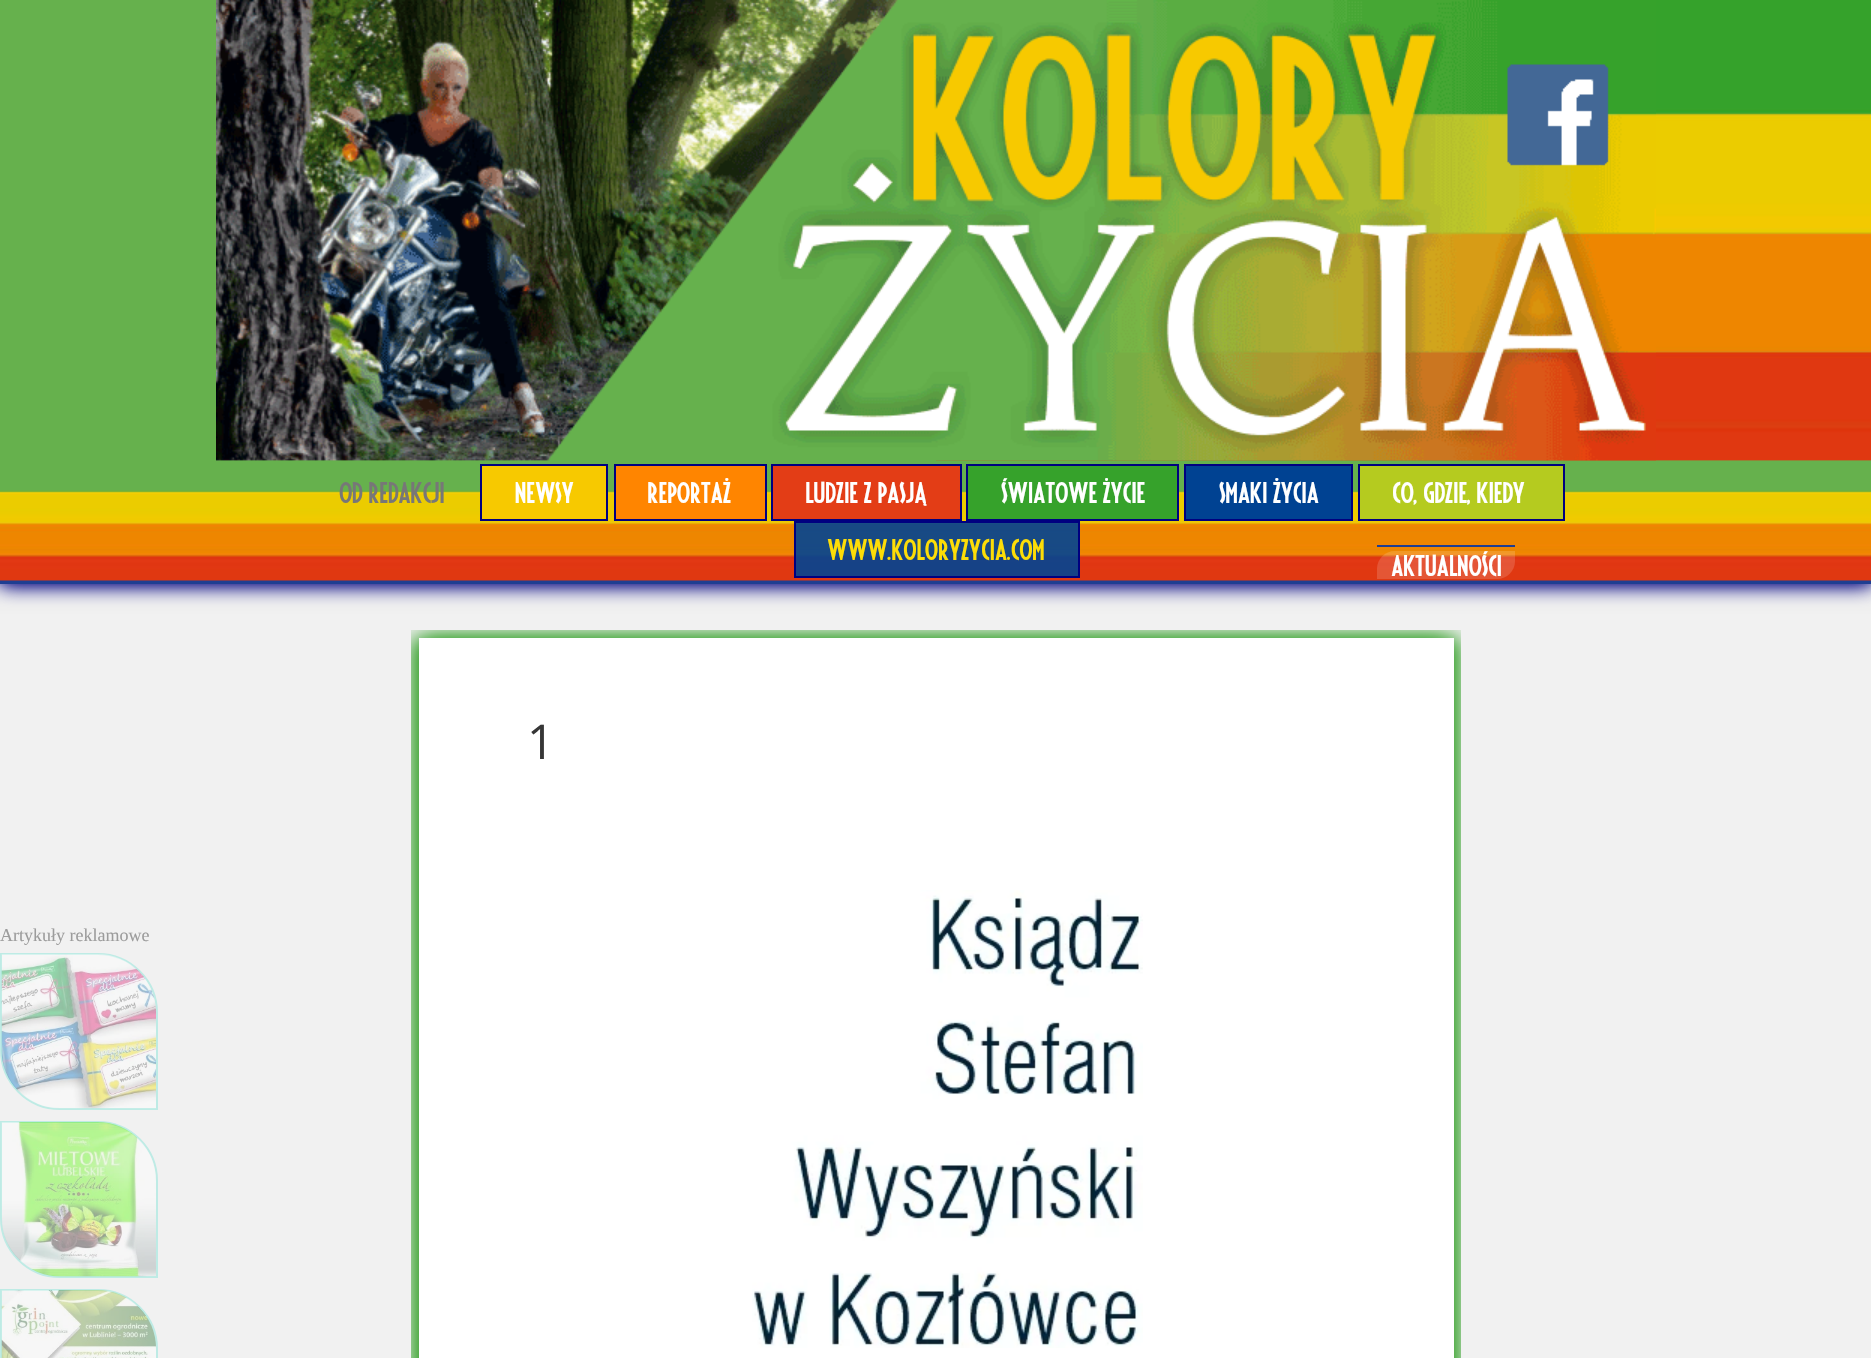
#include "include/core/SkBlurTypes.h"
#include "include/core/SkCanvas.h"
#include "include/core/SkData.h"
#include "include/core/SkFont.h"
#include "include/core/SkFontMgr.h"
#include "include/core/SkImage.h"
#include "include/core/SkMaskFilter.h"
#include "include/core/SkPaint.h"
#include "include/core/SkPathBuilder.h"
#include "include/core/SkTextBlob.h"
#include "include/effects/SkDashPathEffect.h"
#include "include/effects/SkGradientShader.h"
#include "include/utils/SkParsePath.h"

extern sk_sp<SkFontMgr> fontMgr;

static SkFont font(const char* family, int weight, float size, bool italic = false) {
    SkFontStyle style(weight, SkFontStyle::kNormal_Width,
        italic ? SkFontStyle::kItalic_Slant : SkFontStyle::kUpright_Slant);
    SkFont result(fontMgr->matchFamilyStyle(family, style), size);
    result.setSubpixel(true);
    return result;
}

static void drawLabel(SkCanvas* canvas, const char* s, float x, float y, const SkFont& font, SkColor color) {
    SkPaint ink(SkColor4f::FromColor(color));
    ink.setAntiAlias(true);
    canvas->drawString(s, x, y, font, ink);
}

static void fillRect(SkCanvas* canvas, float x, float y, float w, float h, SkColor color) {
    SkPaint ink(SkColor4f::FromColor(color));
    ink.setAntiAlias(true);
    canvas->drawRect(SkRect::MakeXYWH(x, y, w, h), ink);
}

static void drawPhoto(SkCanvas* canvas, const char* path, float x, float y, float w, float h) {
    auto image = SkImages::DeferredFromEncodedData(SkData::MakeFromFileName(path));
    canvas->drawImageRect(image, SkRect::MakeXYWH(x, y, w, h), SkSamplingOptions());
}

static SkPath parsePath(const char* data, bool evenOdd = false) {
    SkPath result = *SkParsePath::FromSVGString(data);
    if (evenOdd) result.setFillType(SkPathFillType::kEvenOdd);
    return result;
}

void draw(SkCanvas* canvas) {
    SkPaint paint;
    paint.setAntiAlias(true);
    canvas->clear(0xFF66B14D);
    drawPhoto(canvas, "assets/img1.png", 936, 0, 935, 461);
    drawPhoto(canvas, "assets/img2.png", 216, 0, 1440, 461);
    fillRect(canvas, 0, 584, 1871, 774, 0xFFF1F1F1);
    canvas->save();
    canvas->clipRect(SkRect::MakeXYWH(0, 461, 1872, 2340));
    paint.setColor(0xFF000080);
    paint.setMaskFilter(SkMaskFilter::MakeBlur(kNormal_SkBlurStyle, 10));
    canvas->drawRect(SkRect::MakeXYWH(0, 461, 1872, 120), paint);
    paint.setMaskFilter(nullptr);
    paint.setMaskFilter(SkMaskFilter::MakeBlur(kNormal_SkBlurStyle, 10));
    canvas->drawRect(SkRect::MakeXYWH(0, 464, 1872, 120), paint);
    paint.setMaskFilter(nullptr);
    canvas->restore();
    fillRect(canvas, 0, 580, 1871, 4, 0xFF1E3E92);
    drawPhoto(canvas, "assets/img3.png", 0, 460, 1871, 121);
    SkFont font1 = font("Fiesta", 400, 24);
    drawLabel(canvas, "Od redakcji", 339, 503, font1, 0xFF777777);
    paint.setColor(0xFFF7C900);
    canvas->drawRect(SkRect::MakeXYWH(481, 465, 126, 55), paint);
    paint.setStroke(true);
    paint.setStrokeWidth(2);
    paint.setColor(0xFF000080);
    canvas->drawRect(SkRect::MakeXYWH(481, 465, 126, 55), paint);
    drawLabel(canvas, "NEWSY", 515, 503, font1, 0xFFFFFFFF);
    paint.setStroke(false);
    paint.setColor(0xFFFF8500);
    canvas->drawRect(SkRect::MakeXYWH(615, 465, 151, 55), paint);
    paint.setStroke(true);
    paint.setColor(0xFF000080);
    canvas->drawRect(SkRect::MakeXYWH(615, 465, 151, 55), paint);
    drawLabel(canvas, "REPORTAŻ", 647, 503, font1, 0xFFFFFFFF);
    paint.setStroke(false);
    paint.setColor(0xFFE33D16);
    canvas->drawRect(SkRect::MakeXYWH(772, 465, 189, 55), paint);
    paint.setStroke(true);
    paint.setColor(0xFF000080);
    canvas->drawRect(SkRect::MakeXYWH(772, 465, 189, 55), paint);
    drawLabel(canvas, "LUDZIE Z PASJĄ", 805, 503, font1, 0xFFFFFFFF);
    paint.setStroke(false);
    paint.setColor(0xFF36A22B);
    canvas->drawRect(SkRect::MakeXYWH(967, 465, 211, 55), paint);
    paint.setStroke(true);
    paint.setColor(0xFF000080);
    canvas->drawRect(SkRect::MakeXYWH(967, 465, 211, 55), paint);
    drawLabel(canvas, "ŚWIATOWE ŻYCIE", 1001, 503, font1, 0xFFFFFFFF);
    paint.setStroke(false);
    paint.setColor(0xFF004292);
    canvas->drawRect(SkRect::MakeXYWH(1185, 465, 167, 55), paint);
    paint.setStroke(true);
    paint.setColor(0xFF000080);
    canvas->drawRect(SkRect::MakeXYWH(1185, 465, 167, 55), paint);
    drawLabel(canvas, "SMAKI ŻYCIA", 1219, 503, font1, 0xFFFFFFFF);
    paint.setStroke(false);
    paint.setColor(0xFFB5CB1F);
    canvas->drawRect(SkRect::MakeXYWH(1359, 465, 205, 55), paint);
    paint.setStroke(true);
    paint.setColor(0xFF000080);
    canvas->drawRect(SkRect::MakeXYWH(1359, 465, 205, 55), paint);
    drawLabel(canvas, "CO, GDZIE, KIEDY…", 1392, 503, font1, 0xFFFFFFFF);
    paint.setStroke(false);
    paint.setColor(0xE6004292);
    canvas->drawRect(SkRect::MakeXYWH(795, 522, 284, 55), paint);
    paint.setStroke(true);
    paint.setColor(0xFF000080);
    canvas->drawRect(SkRect::MakeXYWH(795, 522, 284, 55), paint);
    drawLabel(canvas, "WWW.KOLORYZYCIA.COM", 827, 560, font1, 0xFFFDDD07);
    fillRect(canvas, 1377, 545, 138, 2, 0xFF1E3E92);
    paint.setStroke(false);
    paint.setColor(0x26FFFFFF);
    canvas->drawPath(parsePath("M1395 551H1515V561C1515 571 1507 579 1497 579H1377V569C1377 559 1385 551 1395 551Z"), paint);
    drawLabel(canvas, "AKTUALNOŚCI", 1391, 576, font1, 0xFFFFFFFF);
    canvas->save();
    canvas->clipRect(SkRect::MakeXYWH(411, 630, 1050, 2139));
    paint.setColor(0xFF36A22B);
    paint.setMaskFilter(SkMaskFilter::MakeBlur(kNormal_SkBlurStyle, 10));
    canvas->drawRect(SkRect::MakeXYWH(411, 638, 1035, 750), paint);
    paint.setMaskFilter(nullptr);
    paint.setMaskFilter(SkMaskFilter::MakeBlur(kNormal_SkBlurStyle, 10));
    canvas->drawRect(SkRect::MakeXYWH(426, 638, 1035, 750), paint);
    paint.setMaskFilter(nullptr);
    canvas->restore();
    fillRect(canvas, 419, 638, 1035, 720, 0xFFFFFFFF);
    SkFont font2 = font("Open Sans", 400, 48);
    drawLabel(canvas, "1", 527, 759, font2, 0xFF363636);
    drawPhoto(canvas, "assets/img4.png", 752, 890, 391, 458);
    SkFont font3 = font("Liberation Serif", 400, 18);
    drawLabel(canvas, "Artykuły reklamowe", 0, 941, font3, 0xFF9C9C9C);
    paint.setStroke(true);
    paint.setColor(0xFFBEEBE5);
    canvas->drawPath(parsePath("M1 954H98C130.5 954 157 980.5 157 1013V1109H60C27.5 1109 1 1082.5 1 1050Z"), paint);
    drawPhoto(canvas, "assets/img5.png", 1, 954, 155, 155);
    canvas->drawPath(parsePath("M1 1122H98C130.5 1122 157 1148.5 157 1181V1277H60C27.5 1277 1 1250.5 1 1218Z"), paint);
    drawPhoto(canvas, "assets/img6.png", 1, 1122, 155, 155);
    canvas->drawPath(parsePath("M1 1290H98C130.5 1290 157 1316.5 157 1349V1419H60C27.5 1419 1 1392.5 1 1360Z"), paint);
    drawPhoto(canvas, "assets/img7.png", 1, 1290, 155, 68);
}
